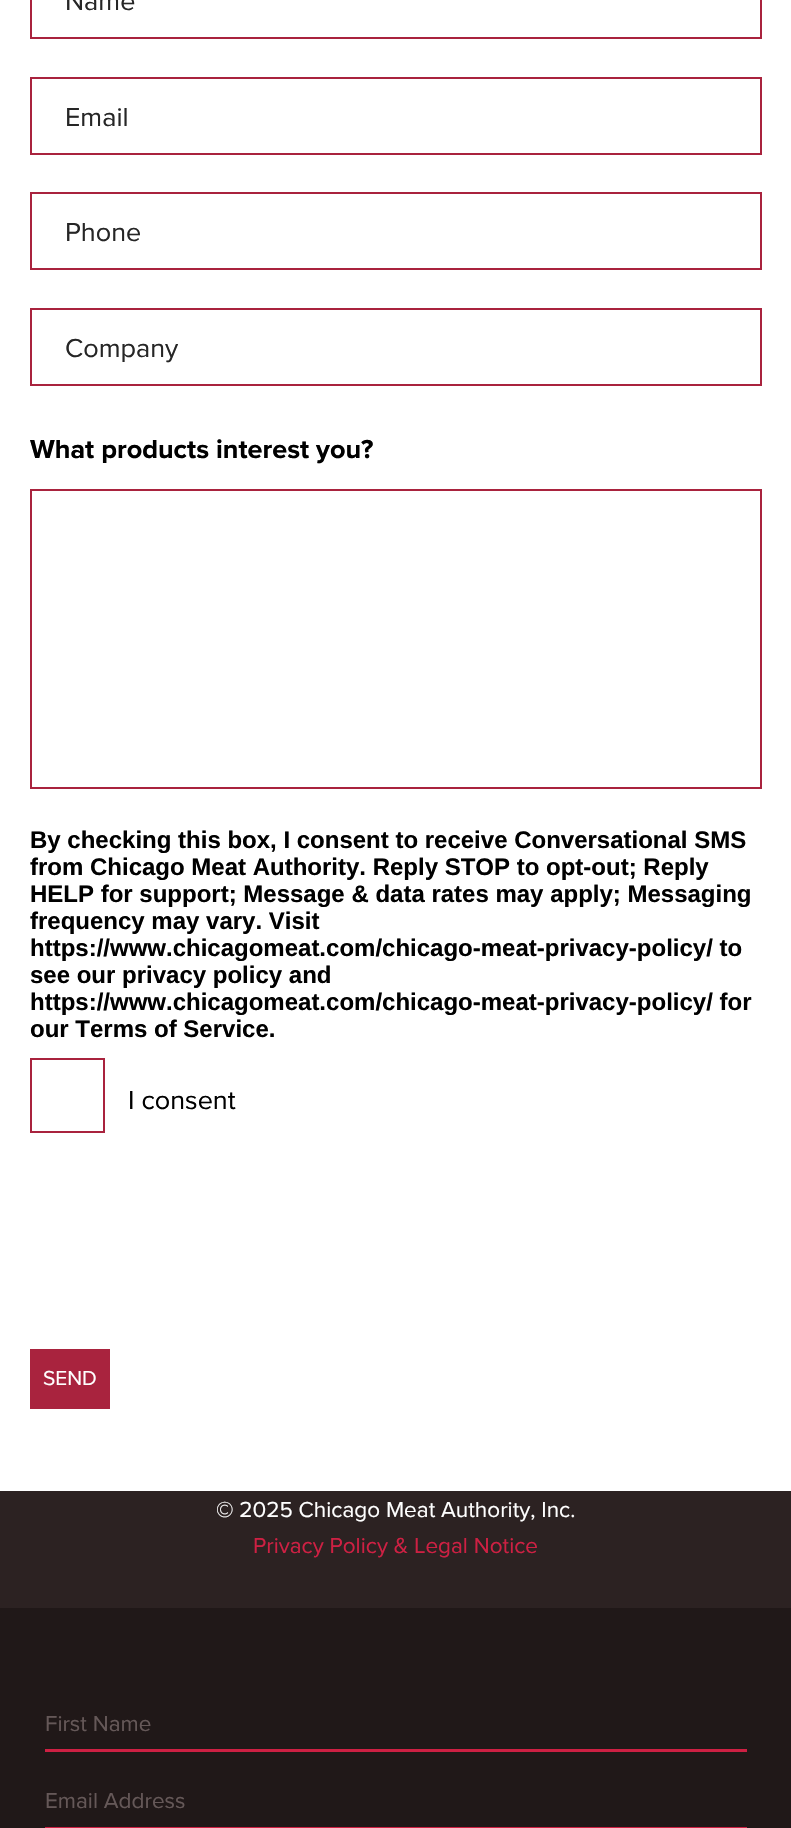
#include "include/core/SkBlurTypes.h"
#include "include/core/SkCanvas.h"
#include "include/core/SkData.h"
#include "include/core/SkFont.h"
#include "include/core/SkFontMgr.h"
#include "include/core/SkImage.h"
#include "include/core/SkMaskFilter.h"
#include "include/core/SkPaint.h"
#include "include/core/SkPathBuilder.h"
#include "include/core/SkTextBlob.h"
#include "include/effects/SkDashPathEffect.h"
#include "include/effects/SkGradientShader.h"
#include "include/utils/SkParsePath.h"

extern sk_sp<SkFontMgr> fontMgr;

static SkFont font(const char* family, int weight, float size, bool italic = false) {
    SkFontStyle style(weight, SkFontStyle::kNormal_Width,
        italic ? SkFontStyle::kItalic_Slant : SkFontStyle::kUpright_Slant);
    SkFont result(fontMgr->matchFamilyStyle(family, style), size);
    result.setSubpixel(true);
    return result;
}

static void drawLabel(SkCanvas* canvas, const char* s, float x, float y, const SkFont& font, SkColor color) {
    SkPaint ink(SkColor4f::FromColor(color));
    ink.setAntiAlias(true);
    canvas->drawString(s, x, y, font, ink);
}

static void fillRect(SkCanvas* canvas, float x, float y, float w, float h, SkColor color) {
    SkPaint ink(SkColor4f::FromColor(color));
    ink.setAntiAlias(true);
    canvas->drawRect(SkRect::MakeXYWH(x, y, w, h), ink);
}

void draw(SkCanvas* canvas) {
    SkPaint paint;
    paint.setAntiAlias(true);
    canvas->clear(0xFFFFFFFF);
    paint.setStroke(true);
    paint.setStrokeWidth(2);
    paint.setColor(0xFFA9233E);
    canvas->drawRect(SkRect::MakeXYWH(31, -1, 730, 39), paint);
    SkFont font1 = font("Proxima Nova", 400, 27);
    drawLabel(canvas, "Name", 65, 10, font1, 0xFF262626);
    canvas->drawRect(SkRect::MakeXYWH(31, 78, 730, 76), paint);
    drawLabel(canvas, "Email", 65, 126, font1, 0xFF262626);
    canvas->drawRect(SkRect::MakeXYWH(31, 193, 730, 76), paint);
    drawLabel(canvas, "Phone", 65, 241, font1, 0xFF262626);
    canvas->drawRect(SkRect::MakeXYWH(31, 309, 730, 76), paint);
    drawLabel(canvas, "Company", 65, 357, font1, 0xFF262626);
    SkFont font2 = font("Proxima Nova", 700, 27);
    drawLabel(canvas, "What products interest you?", 30, 458, font2, 0xFF000000);
    canvas->drawRect(SkRect::MakeXYWH(31, 490, 730, 298), paint);
    SkFont font3 = font("Liberation Sans", 700, 24);
    drawLabel(canvas, "By checking this box, I consent to receive Conversational SMS", 30, 848, font3, 0xFF000000);
    drawLabel(canvas, "from Chicago Meat Authority. Reply STOP to opt-out; Reply", 30, 875, font3, 0xFF000000);
    drawLabel(canvas, "HELP for support; Message & data rates may apply; Messaging", 30, 902, font3, 0xFF000000);
    drawLabel(canvas, "frequency may vary. Visit", 30, 929, font3, 0xFF000000);
    drawLabel(canvas, "https://www.chicagomeat.com/chicago-meat-privacy-policy/ to", 30, 956, font3, 0xFF000000);
    drawLabel(canvas, "see our privacy policy and", 30, 983, font3, 0xFF000000);
    drawLabel(canvas, "https://www.chicagomeat.com/chicago-meat-privacy-policy/ for", 30, 1010, font3, 0xFF000000);
    drawLabel(canvas, "our Terms of Service.", 30, 1037, font3, 0xFF000000);
    canvas->drawRect(SkRect::MakeXYWH(31, 1059, 73, 73), paint);
    drawLabel(canvas, "I consent", 128, 1109, font1, 0xFF000000);
    fillRect(canvas, 30, 1349, 80, 60, 0xFFA9233E);
    SkFont font4 = font("Proxima Nova", 400, 21);
    drawLabel(canvas, "SEND", 43, 1385, font4, 0xFFFFFFFF);
    fillRect(canvas, 0, 1491, 791, 117, 0xFF2C2222);
    SkFont font5 = font("Proxima Nova", 400, 22.5f);
    drawLabel(canvas, "© 2025 Chicago Meat Authority, Inc.", 216, 1517, font5, 0xFFFFFFFF);
    drawLabel(canvas, "Privacy Policy & Legal Notice", 253, 1553, font5, 0xFFCE2043);
    fillRect(canvas, 0, 1608, 791, 220, 0xFF201818);
    fillRect(canvas, 45, 1749, 702, 3, 0xFFCE2043);
    drawLabel(canvas, "First Name", 45, 1731, font5, 0xFF655858);
    fillRect(canvas, 45, 1827, 702, 1, 0xFFCE2043);
    drawLabel(canvas, "Email Address", 45, 1808, font5, 0xFF655858);
}
